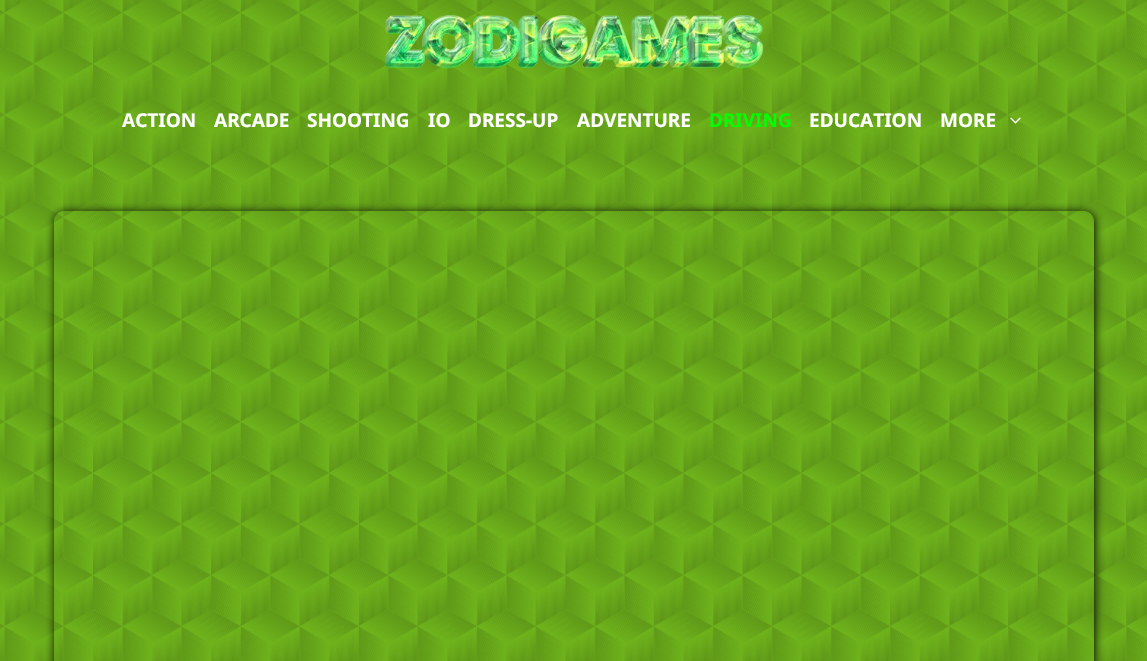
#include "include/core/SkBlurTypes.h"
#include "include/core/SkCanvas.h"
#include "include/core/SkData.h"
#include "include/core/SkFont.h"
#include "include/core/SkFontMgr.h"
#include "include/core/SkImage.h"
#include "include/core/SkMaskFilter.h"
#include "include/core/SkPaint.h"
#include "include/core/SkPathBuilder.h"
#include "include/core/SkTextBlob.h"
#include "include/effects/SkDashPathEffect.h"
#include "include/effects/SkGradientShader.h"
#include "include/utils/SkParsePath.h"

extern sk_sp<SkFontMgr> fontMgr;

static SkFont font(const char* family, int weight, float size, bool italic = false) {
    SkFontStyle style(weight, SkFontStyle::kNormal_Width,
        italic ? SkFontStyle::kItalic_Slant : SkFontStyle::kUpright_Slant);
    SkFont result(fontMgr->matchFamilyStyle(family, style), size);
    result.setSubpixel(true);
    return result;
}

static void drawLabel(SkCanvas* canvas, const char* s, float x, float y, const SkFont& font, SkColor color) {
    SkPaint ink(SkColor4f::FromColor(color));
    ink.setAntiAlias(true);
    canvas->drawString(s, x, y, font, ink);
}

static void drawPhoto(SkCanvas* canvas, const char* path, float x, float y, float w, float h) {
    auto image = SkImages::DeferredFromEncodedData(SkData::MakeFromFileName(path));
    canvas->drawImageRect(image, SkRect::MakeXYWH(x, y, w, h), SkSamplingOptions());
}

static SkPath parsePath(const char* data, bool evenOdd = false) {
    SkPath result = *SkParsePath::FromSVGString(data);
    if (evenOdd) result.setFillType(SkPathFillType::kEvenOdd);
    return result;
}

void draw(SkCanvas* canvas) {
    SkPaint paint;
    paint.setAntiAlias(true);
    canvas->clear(0xFFFFFFFF);
    drawPhoto(canvas, "assets/img1.png", 0, 0, 1147, 661);
    drawPhoto(canvas, "assets/img2.png", 385, 15, 379, 54);
    SkFont font1 = font("Noto Sans", 700, 19);
    drawLabel(canvas, "ACTION", 122, 127, font1, 0xFFFFFFFF);
    drawLabel(canvas, "ARCADE", 214, 127, font1, 0xFFFFFFFF);
    drawLabel(canvas, "SHOOTING", 307, 127, font1, 0xFFFFFFFF);
    drawLabel(canvas, "IO", 428, 127, font1, 0xFFFFFFFF);
    drawLabel(canvas, "DRESS-UP", 468, 127, font1, 0xFFFFFFFF);
    drawLabel(canvas, "ADVENTURE", 577, 127, font1, 0xFFFFFFFF);
    drawLabel(canvas, "DRIVING", 709, 127, font1, 0xFF00FF00);
    drawLabel(canvas, "EDUCATION", 809, 127, font1, 0xFFFFFFFF);
    drawLabel(canvas, "MORE", 940, 127, font1, 0xFFFFFFFF);
    drawPhoto(canvas, "assets/img3.png", 1010, 117, 11, 7);
    canvas->save();
    canvas->clipPath(parsePath("M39 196H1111V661H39ZM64 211H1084C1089.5 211 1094 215.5 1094 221V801C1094 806.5 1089.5 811 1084 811H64C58.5 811 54 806.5 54 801V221C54 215.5 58.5 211 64 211Z", true), true);
    paint.setColor(0xFF000000);
    paint.setMaskFilter(SkMaskFilter::MakeBlur(kNormal_SkBlurStyle, 5));
    canvas->drawRoundRect(SkRect::MakeXYWH(55, 212, 1040, 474), 10, 10, paint);
    paint.setMaskFilter(nullptr);
    canvas->restore();
}
